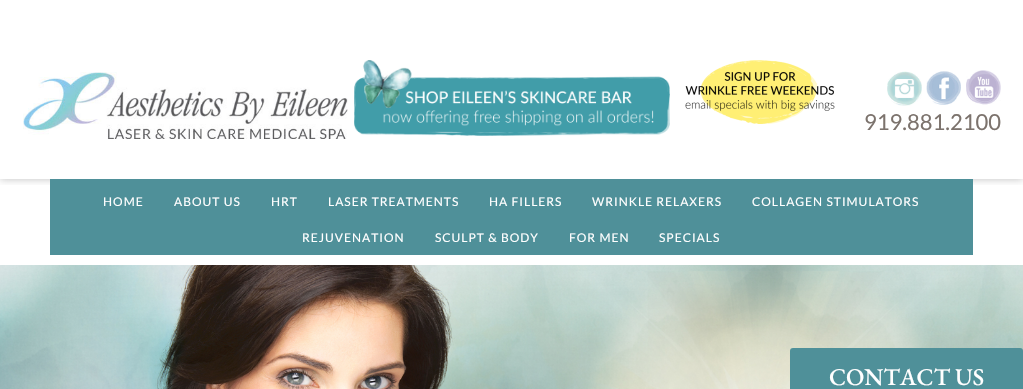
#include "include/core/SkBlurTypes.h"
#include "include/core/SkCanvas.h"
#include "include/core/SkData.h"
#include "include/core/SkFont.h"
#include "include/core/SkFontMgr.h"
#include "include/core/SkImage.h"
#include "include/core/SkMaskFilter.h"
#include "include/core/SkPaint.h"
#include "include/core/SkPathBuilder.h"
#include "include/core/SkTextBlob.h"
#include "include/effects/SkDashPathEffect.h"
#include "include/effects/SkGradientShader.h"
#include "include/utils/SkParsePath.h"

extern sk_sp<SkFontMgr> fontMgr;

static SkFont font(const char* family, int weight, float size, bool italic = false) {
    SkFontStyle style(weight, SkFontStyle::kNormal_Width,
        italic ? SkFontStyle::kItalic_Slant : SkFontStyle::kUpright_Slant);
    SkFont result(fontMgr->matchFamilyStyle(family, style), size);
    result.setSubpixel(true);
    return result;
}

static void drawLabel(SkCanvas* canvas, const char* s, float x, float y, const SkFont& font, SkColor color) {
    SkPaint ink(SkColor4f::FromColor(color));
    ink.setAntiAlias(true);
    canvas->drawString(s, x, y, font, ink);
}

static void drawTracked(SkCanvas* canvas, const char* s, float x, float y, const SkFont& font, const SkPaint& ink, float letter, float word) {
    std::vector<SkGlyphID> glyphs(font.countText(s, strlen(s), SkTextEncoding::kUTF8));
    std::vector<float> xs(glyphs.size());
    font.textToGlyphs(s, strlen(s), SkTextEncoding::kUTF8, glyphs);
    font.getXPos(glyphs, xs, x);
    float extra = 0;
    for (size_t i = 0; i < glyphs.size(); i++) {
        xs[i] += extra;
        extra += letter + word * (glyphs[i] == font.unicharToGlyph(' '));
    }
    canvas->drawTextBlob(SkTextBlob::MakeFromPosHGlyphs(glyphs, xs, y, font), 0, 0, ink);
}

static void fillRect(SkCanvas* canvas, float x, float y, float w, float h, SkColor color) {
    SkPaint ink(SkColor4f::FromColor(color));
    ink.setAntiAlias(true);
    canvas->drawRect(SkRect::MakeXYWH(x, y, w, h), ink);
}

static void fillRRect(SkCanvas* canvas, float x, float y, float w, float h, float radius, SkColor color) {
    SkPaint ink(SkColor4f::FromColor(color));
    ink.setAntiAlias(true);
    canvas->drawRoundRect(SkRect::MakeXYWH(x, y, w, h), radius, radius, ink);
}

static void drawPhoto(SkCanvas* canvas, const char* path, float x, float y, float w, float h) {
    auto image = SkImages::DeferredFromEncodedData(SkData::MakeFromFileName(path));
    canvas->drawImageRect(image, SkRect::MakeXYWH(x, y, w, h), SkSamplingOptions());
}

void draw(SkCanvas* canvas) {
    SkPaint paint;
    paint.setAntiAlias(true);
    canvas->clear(0xFFFFFFFF);
    canvas->save();
    canvas->clipRect(SkRect::MakeXYWH(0, 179, 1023, 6));
    paint.setColor(0x40000000);
    paint.setMaskFilter(SkMaskFilter::MakeBlur(kNormal_SkBlurStyle, 4));
    canvas->drawRect(SkRect::MakeXYWH(0, 0, 1023, 179), paint);
    paint.setMaskFilter(nullptr);
    canvas->restore();
    drawPhoto(canvas, "assets/img1.png", 23, 72, 325, 67);
    drawPhoto(canvas, "assets/img2.png", 354, 60, 316, 76);
    drawPhoto(canvas, "assets/img3.png", 685, 60, 150, 64);
    drawPhoto(canvas, "assets/img4.png", 887, 71, 35, 35);
    drawPhoto(canvas, "assets/img5.png", 926, 71, 35, 34);
    drawPhoto(canvas, "assets/img6.png", 966, 70, 35, 35);
    SkFont font1 = font("Lato", 400, 22);
    drawLabel(canvas, "919.881.2100", 864, 130, font1, 0xFF7C736D);
    fillRect(canvas, 50, 179, 923, 76, 0xFF4F9099);
    SkFont font2 = font("Lato", 400, 12);
    paint.setColor(0xFFFFFFFF);
    drawTracked(canvas, "HOME", 103, 206, font2, paint, 1, 0);
    drawTracked(canvas, "ABOUT US", 174, 206, font2, paint, 1, 0);
    drawTracked(canvas, "HRT", 271, 206, font2, paint, 1, 0);
    drawTracked(canvas, "LASER TREATMENTS", 328, 206, font2, paint, 1, 0);
    drawTracked(canvas, "HA FILLERS", 489, 206, font2, paint, 1, 0);
    drawTracked(canvas, "WRINKLE RELAXERS", 592, 206, font2, paint, 1, 0);
    drawTracked(canvas, "COLLAGEN STIMULATORS", 752, 206, font2, paint, 1, 0);
    drawTracked(canvas, "REJUVENATION", 302, 242, font2, paint, 1, 0);
    drawTracked(canvas, "SCULPT & BODY", 435, 242, font2, paint, 1, 0);
    drawTracked(canvas, "FOR MEN", 569, 242, font2, paint, 1, 0);
    drawTracked(canvas, "SPECIALS", 659, 242, font2, paint, 1, 0);
    drawPhoto(canvas, "assets/img7.png", 0, 265, 1023, 124);
    fillRRect(canvas, 790, 348, 233, 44, 3, 0xFF4F9099);
    SkFont font3 = font("EB Garamond", 500, 24);
    drawLabel(canvas, "CONTACT US", 829, 385, font3, 0xFFFFFFFF);
}
